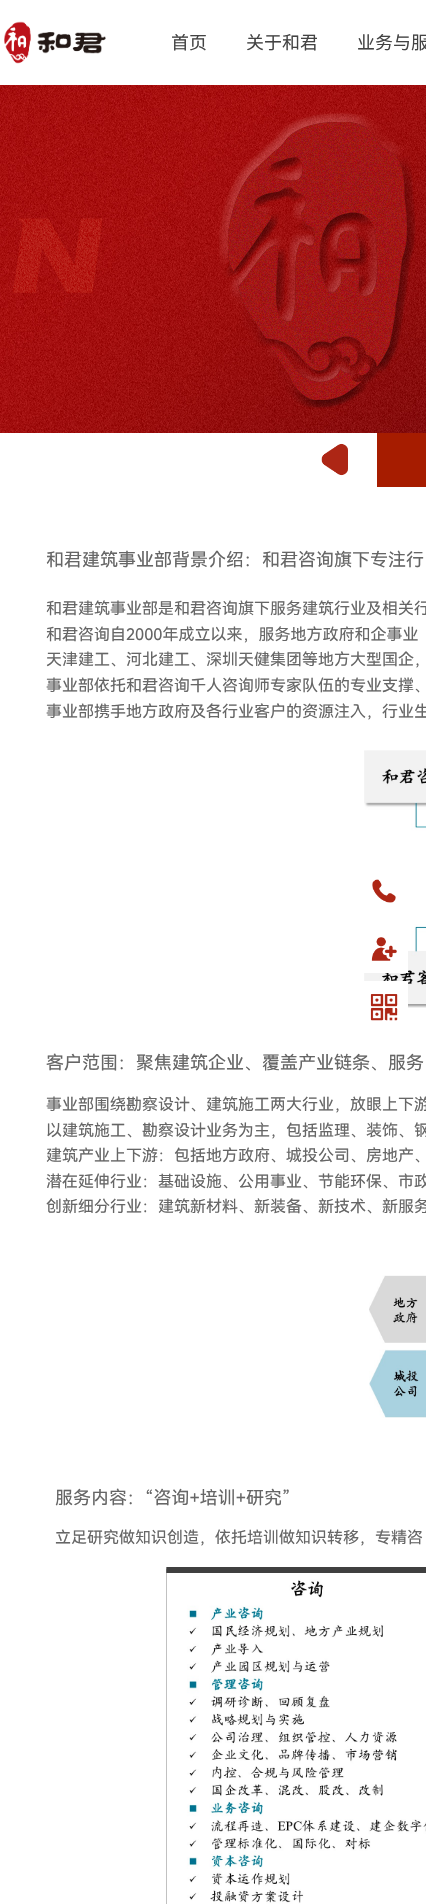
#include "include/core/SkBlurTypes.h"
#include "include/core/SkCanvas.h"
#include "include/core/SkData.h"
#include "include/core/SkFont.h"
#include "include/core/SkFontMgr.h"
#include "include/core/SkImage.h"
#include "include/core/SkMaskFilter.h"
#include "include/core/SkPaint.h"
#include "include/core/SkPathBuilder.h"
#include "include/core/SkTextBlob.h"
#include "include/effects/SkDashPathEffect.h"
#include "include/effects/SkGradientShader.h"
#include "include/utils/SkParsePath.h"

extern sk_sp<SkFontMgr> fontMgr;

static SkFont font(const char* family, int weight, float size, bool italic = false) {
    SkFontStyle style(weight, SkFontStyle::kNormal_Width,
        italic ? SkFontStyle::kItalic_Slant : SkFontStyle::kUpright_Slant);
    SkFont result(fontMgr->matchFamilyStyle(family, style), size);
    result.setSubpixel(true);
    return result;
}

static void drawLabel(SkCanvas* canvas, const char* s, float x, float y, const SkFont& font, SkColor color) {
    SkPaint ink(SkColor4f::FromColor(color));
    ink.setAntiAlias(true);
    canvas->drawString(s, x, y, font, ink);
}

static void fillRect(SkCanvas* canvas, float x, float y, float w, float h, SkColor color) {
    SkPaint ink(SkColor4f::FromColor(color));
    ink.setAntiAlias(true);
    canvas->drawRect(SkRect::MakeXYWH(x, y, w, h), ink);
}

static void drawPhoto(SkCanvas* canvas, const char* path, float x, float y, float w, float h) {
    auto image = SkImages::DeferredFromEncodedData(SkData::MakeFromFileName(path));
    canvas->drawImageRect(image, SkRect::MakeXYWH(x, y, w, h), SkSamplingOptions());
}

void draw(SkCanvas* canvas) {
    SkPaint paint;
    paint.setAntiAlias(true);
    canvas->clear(0xFFFFFFFF);
    drawPhoto(canvas, "assets/img1.png", 4, 21, 102, 43);
    SkFont font1 = font("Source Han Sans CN", 400, 18);
    drawLabel(canvas, "首页", 171, 49, font1, 0xFF434343);
    drawLabel(canvas, "关于和君", 246, 49, font1, 0xFF434343);
    drawLabel(canvas, "业务与服", 357, 49, font1, 0xFF434343);
    drawPhoto(canvas, "assets/img2.png", 0, 85, 426, 348);
    drawPhoto(canvas, "assets/img3.png", 321, 443, 27, 33);
    fillRect(canvas, 377, 433, 49, 54, 0xFFA61C00);
    SkFont font2 = font("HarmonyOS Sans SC", 400, 18);
    drawLabel(canvas, "和君建筑事业部背景介绍：和君咨询旗下专注行", 46, 566, font2, 0xFF666666);
    SkFont font3 = font("HarmonyOS Sans SC", 400, 16);
    drawLabel(canvas, "和君建筑事业部是和君咨询旗下服务建筑行业及相关行", 46, 614, font3, 0xFF666666);
    drawLabel(canvas, "和君咨询自2000年成立以来，服务地方政府和企事业", 46, 640, font3, 0xFF666666);
    drawLabel(canvas, "天津建工、河北建工、深圳天健集团等地方大型国企，", 46, 665, font3, 0xFF666666);
    drawLabel(canvas, "事业部依托和君咨询千人咨询师专家队伍的专业支撑、", 46, 691, font3, 0xFF666666);
    drawLabel(canvas, "事业部携手地方政府及各行业客户的资源注入，行业生", 46, 717, font3, 0xFF666666);
    drawPhoto(canvas, "assets/img4.png", 364, 750, 62, 258);
    drawLabel(canvas, "客户范围：聚焦建筑企业、覆盖产业链条、服务", 46, 1069, font2, 0xFF666666);
    drawLabel(canvas, "事业部围绕勘察设计、建筑施工两大行业，放眼上下游", 46, 1110, font3, 0xFF666666);
    drawLabel(canvas, "以建筑施工、勘察设计业务为主，包括监理、装饰、钢", 46, 1136, font3, 0xFF666666);
    drawLabel(canvas, "建筑产业上下游：包括地方政府、城投公司、房地产、", 46, 1161, font3, 0xFF666666);
    drawLabel(canvas, "潜在延伸行业：基础设施、公用事业、节能环保、市政", 46, 1187, font3, 0xFF666666);
    drawLabel(canvas, "创新细分行业：建筑新材料、新装备、新技术、新服务", 46, 1212, font3, 0xFF666666);
    drawPhoto(canvas, "assets/img5.png", 369, 1275, 57, 143);
    drawLabel(canvas, "服务内容：“咨询+培训+研究”", 55, 1504, font2, 0xFF666666);
    drawLabel(canvas, "立足研究做知识创造，依托培训做知识转移，专精咨", 55, 1543, font3, 0xFF666666);
    drawPhoto(canvas, "assets/img6.png", 166, 1567, 260, 337);
    drawPhoto(canvas, "assets/img7.png", 372, 879, 24, 24);
    fillRect(canvas, 364, 950, 44, 23, 0xFFFFFFFF);
    drawPhoto(canvas, "assets/img8.png", 371, 937, 26, 24);
    fillRect(canvas, 364, 981, 44, 27, 0xFFFFFFFF);
    drawPhoto(canvas, "assets/img9.png", 370, 994, 28, 27);
}
